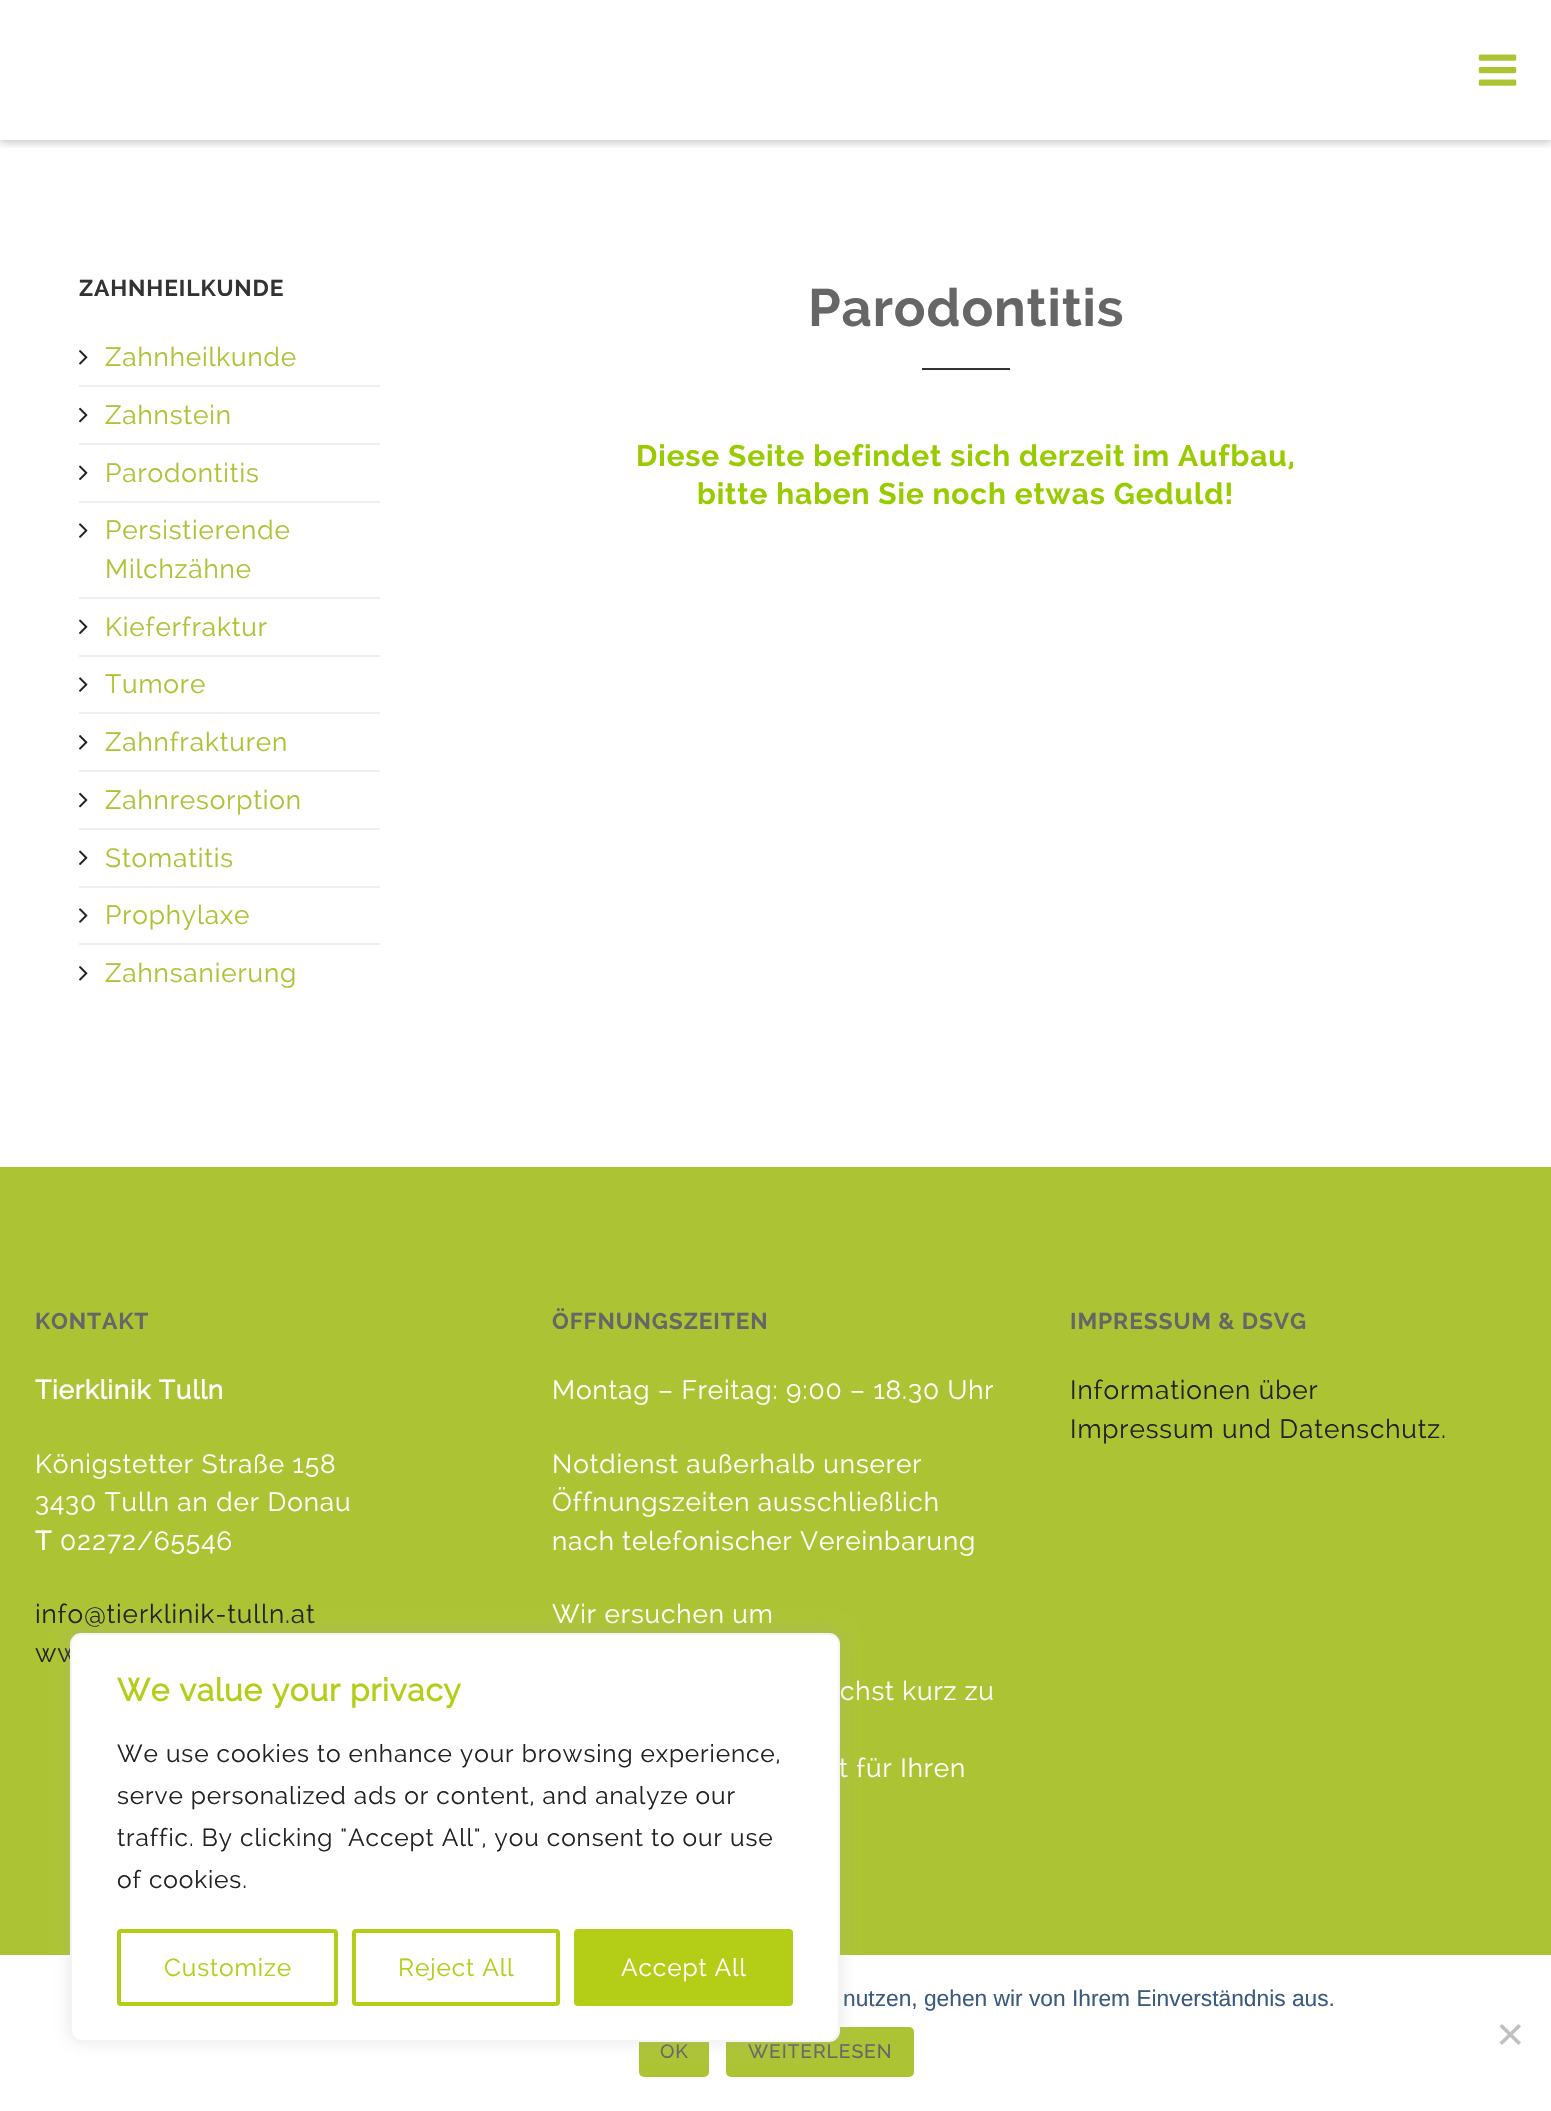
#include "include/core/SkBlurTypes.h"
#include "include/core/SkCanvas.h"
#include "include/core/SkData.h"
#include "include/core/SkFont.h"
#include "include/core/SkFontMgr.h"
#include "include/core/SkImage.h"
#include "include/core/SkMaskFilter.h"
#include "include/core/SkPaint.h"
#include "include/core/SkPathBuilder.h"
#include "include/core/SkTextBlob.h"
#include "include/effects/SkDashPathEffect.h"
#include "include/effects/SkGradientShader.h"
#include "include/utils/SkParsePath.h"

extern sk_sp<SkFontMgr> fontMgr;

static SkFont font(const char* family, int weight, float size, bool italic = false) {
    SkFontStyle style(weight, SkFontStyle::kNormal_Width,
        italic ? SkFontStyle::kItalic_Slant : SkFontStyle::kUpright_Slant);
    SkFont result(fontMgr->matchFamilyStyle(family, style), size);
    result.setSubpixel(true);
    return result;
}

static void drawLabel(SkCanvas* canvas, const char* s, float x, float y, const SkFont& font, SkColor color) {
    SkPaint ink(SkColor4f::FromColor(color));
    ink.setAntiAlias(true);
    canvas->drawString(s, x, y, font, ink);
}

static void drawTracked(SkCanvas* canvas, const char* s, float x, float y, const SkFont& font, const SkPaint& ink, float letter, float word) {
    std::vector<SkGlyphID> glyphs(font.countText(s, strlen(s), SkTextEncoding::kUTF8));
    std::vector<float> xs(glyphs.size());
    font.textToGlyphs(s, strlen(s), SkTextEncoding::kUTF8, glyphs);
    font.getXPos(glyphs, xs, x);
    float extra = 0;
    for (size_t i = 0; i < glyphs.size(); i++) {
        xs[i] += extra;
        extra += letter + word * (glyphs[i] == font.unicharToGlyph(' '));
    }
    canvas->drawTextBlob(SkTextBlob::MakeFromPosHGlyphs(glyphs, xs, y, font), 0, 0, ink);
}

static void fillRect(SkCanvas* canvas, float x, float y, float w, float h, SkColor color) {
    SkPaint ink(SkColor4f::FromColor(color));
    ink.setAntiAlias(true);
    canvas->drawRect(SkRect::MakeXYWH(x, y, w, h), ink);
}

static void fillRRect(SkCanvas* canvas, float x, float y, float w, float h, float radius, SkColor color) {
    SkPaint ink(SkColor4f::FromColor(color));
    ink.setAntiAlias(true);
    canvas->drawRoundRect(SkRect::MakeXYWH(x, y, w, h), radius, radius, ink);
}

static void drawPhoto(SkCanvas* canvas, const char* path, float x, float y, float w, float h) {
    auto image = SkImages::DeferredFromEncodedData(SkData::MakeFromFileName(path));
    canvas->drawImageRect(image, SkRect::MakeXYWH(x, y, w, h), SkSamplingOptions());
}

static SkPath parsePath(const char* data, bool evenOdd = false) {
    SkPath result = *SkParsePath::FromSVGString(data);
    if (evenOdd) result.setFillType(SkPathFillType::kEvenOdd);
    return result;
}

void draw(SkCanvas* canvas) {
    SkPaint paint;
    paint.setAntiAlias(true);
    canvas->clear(0xFFFFFFFF);
    canvas->save();
    canvas->clipRect(SkRect::MakeXYWH(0, 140, 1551, 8));
    paint.setColor(0x40000000);
    paint.setMaskFilter(SkMaskFilter::MakeBlur(kNormal_SkBlurStyle, 4.5f));
    canvas->drawRect(SkRect::MakeXYWH(0, 2, 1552, 140), paint);
    paint.setMaskFilter(nullptr);
    canvas->restore();
    drawPhoto(canvas, "assets/img1.png", 1478, 54, 39, 32);
    SkFont font1 = font("Raleway", 700, 22.75f);
    paint.setColor(0xFF333333);
    drawTracked(canvas, "ZAHNHEILKUNDE", 79, 296, font1, paint, 0.88f, 0);
    fillRect(canvas, 79, 385, 301, 2, 0xFFEFEFEF);
    drawPhoto(canvas, "assets/img2.png", 79, 350, 9, 15);
    SkFont font2 = font("Raleway", 400, 26.25f);
    paint.setColor(0xFFACC434);
    drawTracked(canvas, "Zahnheilkunde", 105, 366, font2, paint, 0.88f, 0);
    fillRect(canvas, 79, 443, 301, 2, 0xFFEFEFEF);
    drawPhoto(canvas, "assets/img3.png", 79, 407, 9, 16);
    drawTracked(canvas, "Zahnstein", 105, 424, font2, paint, 0.88f, 0);
    fillRect(canvas, 79, 501, 301, 2, 0xFFEFEFEF);
    drawPhoto(canvas, "assets/img4.png", 79, 465, 9, 16);
    drawTracked(canvas, "Parodontitis", 105, 482, font2, paint, 0.88f, 0);
    fillRect(canvas, 79, 597, 301, 2, 0xFFEFEFEF);
    drawPhoto(canvas, "assets/img5.png", 79, 523, 9, 15);
    drawTracked(canvas, "Persistierende", 105, 539, font2, paint, 0.88f, 0);
    drawTracked(canvas, "Milchzähne", 105, 578, font2, paint, 0.88f, 0);
    fillRect(canvas, 79, 655, 301, 2, 0xFFEFEFEF);
    drawPhoto(canvas, "assets/img4.png", 79, 619, 9, 16);
    drawTracked(canvas, "Kieferfraktur", 105, 636, font2, paint, 0.88f, 0);
    fillRect(canvas, 79, 712, 301, 2, 0xFFEFEFEF);
    drawPhoto(canvas, "assets/img5.png", 79, 677, 9, 15);
    drawTracked(canvas, "Tumore", 105, 693, font2, paint, 0.88f, 0);
    fillRect(canvas, 79, 770, 301, 2, 0xFFEFEFEF);
    drawPhoto(canvas, "assets/img2.png", 79, 735, 9, 15);
    drawTracked(canvas, "Zahnfrakturen", 105, 751, font2, paint, 0.88f, 0);
    fillRect(canvas, 79, 828, 301, 2, 0xFFEFEFEF);
    drawPhoto(canvas, "assets/img3.png", 79, 792, 9, 16);
    drawTracked(canvas, "Zahnresorption", 105, 809, font2, paint, 0.88f, 0);
    fillRect(canvas, 79, 886, 301, 2, 0xFFEFEFEF);
    drawPhoto(canvas, "assets/img4.png", 79, 850, 9, 16);
    drawTracked(canvas, "Stomatitis", 105, 867, font2, paint, 0.88f, 0);
    fillRect(canvas, 79, 943, 301, 2, 0xFFEFEFEF);
    drawPhoto(canvas, "assets/img5.png", 79, 908, 9, 15);
    drawTracked(canvas, "Prophylaxe", 105, 924, font2, paint, 0.88f, 0);
    drawPhoto(canvas, "assets/img2.png", 79, 966, 9, 15);
    drawTracked(canvas, "Zahnsanierung", 105, 982, font2, paint, 0.88f, 0);
    SkFont font3 = font("Raleway", 700, 52.5f);
    paint.setColor(0xFF666666);
    drawTracked(canvas, "Parodontitis", 808, 326, font3, paint, 0.88f, 0);
    fillRect(canvas, 922, 368, 88, 2, 0xFF333333);
    SkFont font4 = font("Raleway", 700, 29.75f);
    paint.setColor(0xFF99CC00);
    drawTracked(canvas, "Diese Seite befindet sich derzeit im Aufbau,", 636, 466, font4, paint, 0.88f, 0);
    drawTracked(canvas, "bitte haben Sie noch etwas Geduld!", 697, 504, font4, paint, 0.88f, 0);
    fillRect(canvas, 0, 1167, 1551, 788, 0xFFACC434);
    paint.setColor(0xFF666666);
    drawTracked(canvas, "KONTAKT", 35, 1329, font1, paint, 0.88f, 0);
    SkFont font5 = font("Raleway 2", 700, 26.25f);
    paint.setColor(0xFFFFFFFF);
    drawTracked(canvas, "Tierklinik Tulln", 35, 1399, font5, paint, 0.88f, 0);
    drawTracked(canvas, "Königstetter Straße 158", 35, 1473, font2, paint, 0.88f, 0);
    drawTracked(canvas, "3430 Tulln an der Donau", 35, 1511, font2, paint, 0.88f, 0);
    drawTracked(canvas, "T", 35, 1550, font5, paint, 0.88f, 0);
    drawTracked(canvas, "02272/65546", 60, 1550, font2, paint, 0.88f, 0);
    paint.setColor(0xFF222222);
    drawTracked(canvas, "info@tierklinik-tulln.at", 35, 1623, font2, paint, 0.88f, 0);
    drawTracked(canvas, "ww", 35, 1662, font2, paint, 0.88f, 0);
    paint.setColor(0xFF666666);
    drawTracked(canvas, "ÖFFNUNGSZEITEN", 552, 1329, font1, paint, 0.88f, 0);
    paint.setColor(0xFFFFFFFF);
    drawTracked(canvas, "Montag – Freitag: 9:00 – 18.30 Uhr", 552, 1399, font2, paint, 0.88f, 0);
    drawTracked(canvas, "Notdienst außerhalb unserer", 552, 1473, font2, paint, 0.88f, 0);
    drawTracked(canvas, "Öffnungszeiten ausschließlich", 552, 1511, font2, paint, 0.88f, 0);
    drawTracked(canvas, "nach telefonischer Vereinbarung", 552, 1550, font2, paint, 0.88f, 0);
    drawTracked(canvas, "Wir ersuchen um", 552, 1623, font2, paint, 0.88f, 0);
    drawTracked(canvas, "chst kurz zu", 840, 1700, font2, paint, 0.88f, 0);
    drawTracked(canvas, "t für Ihren", 839, 1777, font2, paint, 0.88f, 0);
    paint.setColor(0xFF666666);
    drawTracked(canvas, "IMPRESSUM & DSVG", 1070, 1329, font1, paint, 0.88f, 0);
    paint.setColor(0xFF222222);
    drawTracked(canvas, "Informationen über", 1070, 1399, font2, paint, 0.88f, 0);
    drawTracked(canvas, "Impressum und Datenschutz.", 1070, 1438, font2, paint, 0.88f, 0);
    SkFont font6 = font("Liberation Sans", 400, 22.75f);
    drawLabel(canvas, "nutzen, gehen wir von Ihrem Einverständnis aus.", 843, 2006, font6, 0xFF3B5A7F);
    paint.setColor(0xFFC0C0C0);
    canvas->drawPath(parsePath("M1518.5 2024L1521 2026.5L1502 2045L1499.5 2042.5Z"), paint);
    canvas->drawPath(parsePath("M1499.5 2026.5L1502 2024L1521 2042.5L1518.5 2045Z"), paint);
    fillRRect(canvas, 639, 2027, 70, 50, 5, 0xFFACC434);
    SkFont font7 = font("Raleway", 500, 19.25f);
    paint.setColor(0xFF666666);
    drawTracked(canvas, "OK", 660, 2058, font7, paint, 0.88f, 0);
    fillRRect(canvas, 726, 2027, 188, 50, 5, 0xFFACC434);
    drawTracked(canvas, "WEITERLESEN", 748, 2058, font7, paint, 0.88f, 0);
    paint.setColor(0x4DACABAB);
    paint.setMaskFilter(SkMaskFilter::MakeBlur(kNormal_SkBlurStyle, 9));
    canvas->drawRoundRect(SkRect::MakeXYWH(70, 1631, 770, 410), 11, 11, paint);
    paint.setMaskFilter(nullptr);
    paint.setColor(0xFFFFFFFF);
    canvas->drawRoundRect(SkRect::MakeXYWH(71, 1634, 768, 407), 10, 10, paint);
    paint.setStroke(true);
    paint.setStrokeWidth(2);
    paint.setColor(0xFFF4F4F4);
    canvas->drawRoundRect(SkRect::MakeXYWH(71, 1634, 768, 407), 10, 10, paint);
    SkFont font8 = font("Raleway 2", 700, 31.5f);
    paint.setStroke(false);
    paint.setColor(0xFFB4CD17);
    drawTracked(canvas, "We value your privacy", 117, 1701, font8, paint, 0.88f, 0);
    SkFont font9 = font("Raleway", 400, 24.5f);
    paint.setColor(0xFF222222);
    drawTracked(canvas, "We use cookies to enhance your browsing experience,", 117, 1762, font9, paint, 0.88f, 0);
    drawTracked(canvas, "serve personalized ads or content, and analyze our", 117, 1804, font9, paint, 0.88f, 0);
    drawTracked(canvas, "traffic. By clicking \"Accept All\", you consent to our use", 117, 1846, font9, paint, 0.88f, 0);
    drawTracked(canvas, "of cookies.", 117, 1888, font9, paint, 0.88f, 0);
    paint.setStroke(true);
    paint.setStrokeWidth(4);
    paint.setColor(0xFFB4CD17);
    canvas->drawRoundRect(SkRect::MakeXYWH(119, 1931, 217, 73), 2, 2, paint);
    paint.setStroke(false);
    drawTracked(canvas, "Customize", 164, 1976, font9, paint, 0.88f, 0);
    paint.setStroke(true);
    canvas->drawRoundRect(SkRect::MakeXYWH(354, 1931, 204, 73), 2, 2, paint);
    paint.setStroke(false);
    drawTracked(canvas, "Reject All", 398, 1976, font9, paint, 0.88f, 0);
    canvas->drawRoundRect(SkRect::MakeXYWH(576, 1931, 215, 73), 2, 2, paint);
    paint.setStroke(true);
    canvas->drawRoundRect(SkRect::MakeXYWH(576, 1931, 215, 73), 2, 2, paint);
    paint.setStroke(false);
    paint.setColor(0xFFFFFFFF);
    drawTracked(canvas, "Accept All", 621, 1976, font9, paint, 0.88f, 0);
}
